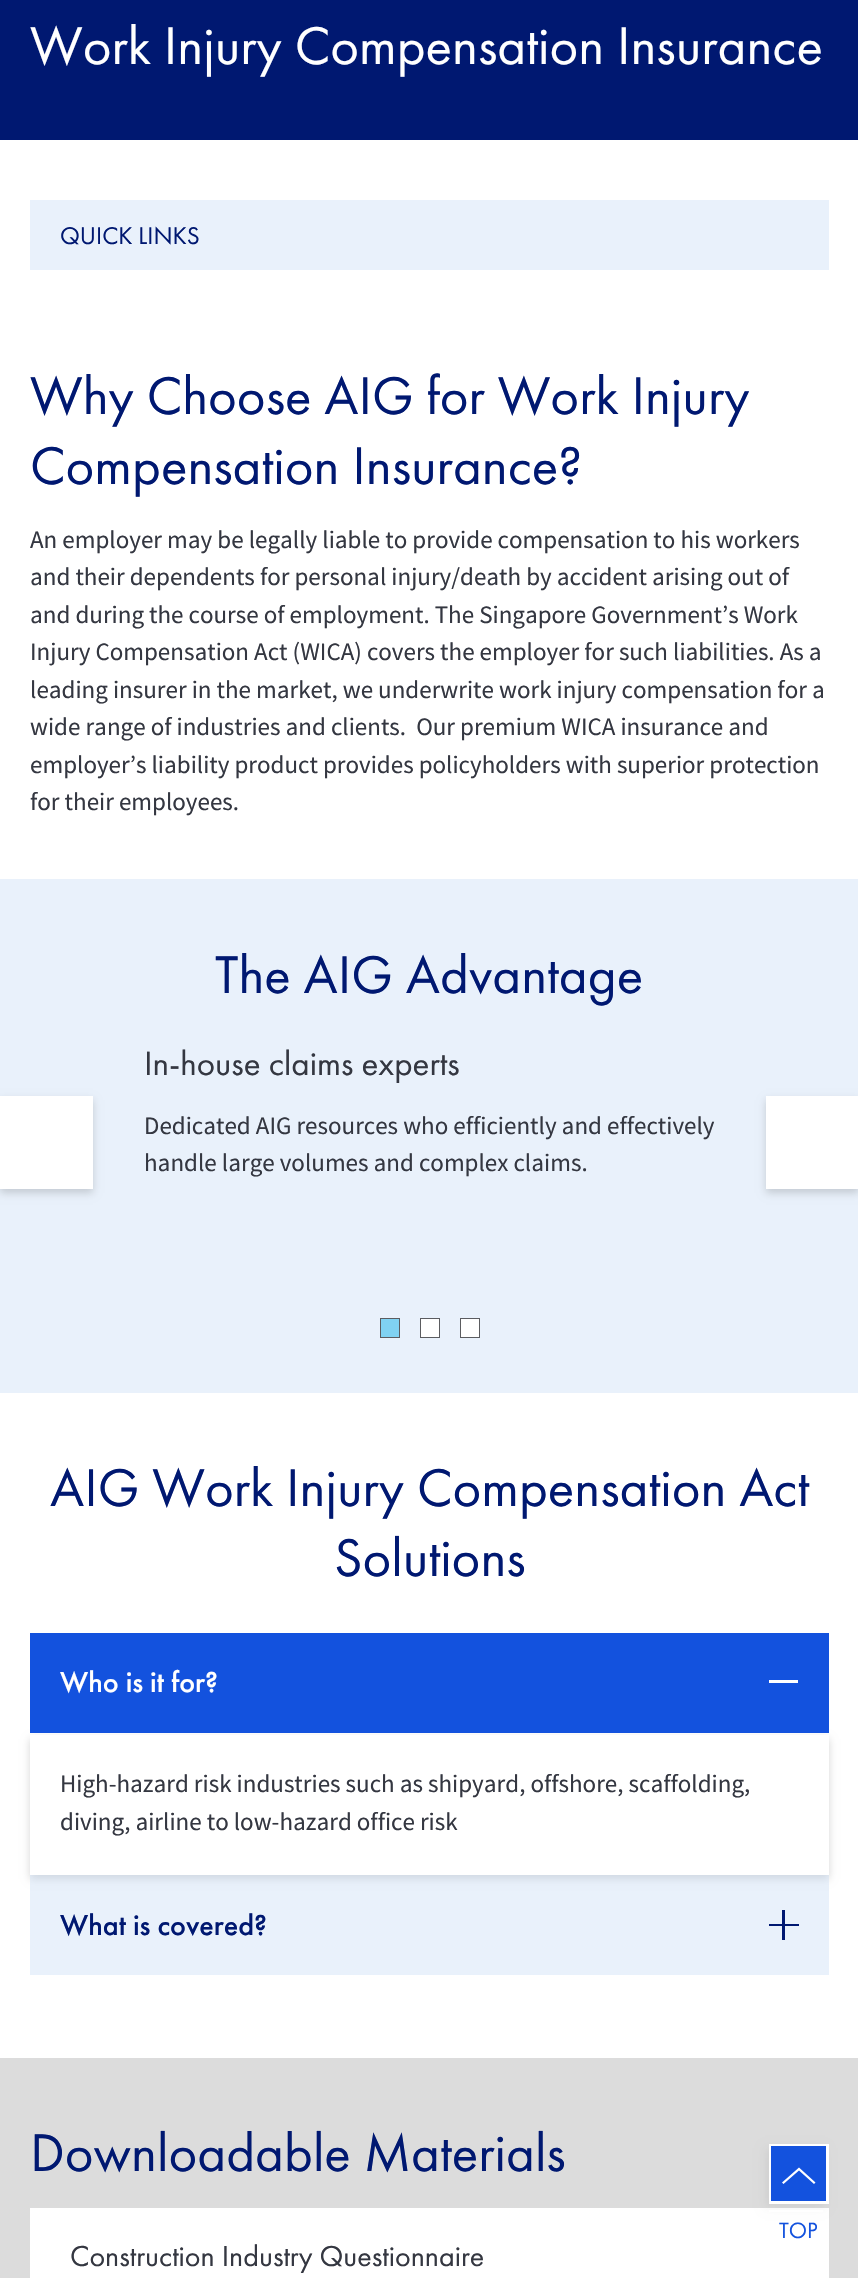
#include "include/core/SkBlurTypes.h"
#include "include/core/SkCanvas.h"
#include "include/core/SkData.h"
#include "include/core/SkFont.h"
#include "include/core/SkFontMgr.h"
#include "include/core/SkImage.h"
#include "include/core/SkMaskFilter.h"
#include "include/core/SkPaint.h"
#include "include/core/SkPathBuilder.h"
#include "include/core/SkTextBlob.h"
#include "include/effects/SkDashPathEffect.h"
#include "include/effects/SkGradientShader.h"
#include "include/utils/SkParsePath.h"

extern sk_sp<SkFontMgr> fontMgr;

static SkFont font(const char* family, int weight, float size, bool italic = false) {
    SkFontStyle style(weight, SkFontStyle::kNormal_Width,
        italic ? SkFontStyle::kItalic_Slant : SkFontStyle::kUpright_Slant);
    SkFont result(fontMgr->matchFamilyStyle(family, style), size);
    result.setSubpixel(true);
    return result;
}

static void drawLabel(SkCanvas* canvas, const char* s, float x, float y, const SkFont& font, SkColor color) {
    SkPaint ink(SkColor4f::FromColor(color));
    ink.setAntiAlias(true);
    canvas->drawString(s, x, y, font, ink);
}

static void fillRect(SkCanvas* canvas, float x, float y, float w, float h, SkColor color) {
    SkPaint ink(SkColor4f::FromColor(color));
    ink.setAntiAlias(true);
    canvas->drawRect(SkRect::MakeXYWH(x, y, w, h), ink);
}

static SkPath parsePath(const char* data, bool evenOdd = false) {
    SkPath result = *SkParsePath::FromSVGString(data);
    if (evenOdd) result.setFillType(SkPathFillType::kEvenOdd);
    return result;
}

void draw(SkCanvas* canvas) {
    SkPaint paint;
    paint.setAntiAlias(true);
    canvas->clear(0xFFFFFFFF);
    fillRect(canvas, 0, 0, 858, 140, 0xFF001871);
    SkFont font1 = font("Futura PT", 400, 55);
    drawLabel(canvas, "Work Injury Compensation Insurance", 30, 64, font1, 0xFFFFFFFF);
    fillRect(canvas, 30, 200, 799, 70, 0xFFE9F1FB);
    SkFont font2 = font("Futura PT", 400, 25);
    drawLabel(canvas, "QUICK LINKS", 60, 244, font2, 0xFF001871);
    drawLabel(canvas, "Why Choose AIG for Work Injury", 30, 414, font1, 0xFF001871);
    drawLabel(canvas, "Compensation Insurance?", 30, 484, font1, 0xFF001871);
    SkFont font3 = font("Source Sans Pro", 400, 25);
    drawLabel(canvas, "An employer may be legally liable to provide compensation to his workers", 30, 548, font3, 0xFF343741);
    drawLabel(canvas, "and their dependents for personal injury/death by accident arising out of", 30, 585, font3, 0xFF343741);
    drawLabel(canvas, "and during the course of employment. The Singapore Government’s Work", 30, 623, font3, 0xFF343741);
    drawLabel(canvas, "Injury Compensation Act (WICA) covers the employer for such liabilities. As a", 30, 660, font3, 0xFF343741);
    drawLabel(canvas, "leading insurer in the market, we underwrite work injury compensation for a", 30, 698, font3, 0xFF343741);
    drawLabel(canvas, "wide range of industries and clients.  Our premium WICA insurance and", 30, 735, font3, 0xFF343741);
    drawLabel(canvas, "employer’s liability product provides policyholders with superior protection", 30, 773, font3, 0xFF343741);
    drawLabel(canvas, "for their employees.", 30, 810, font3, 0xFF343741);
    fillRect(canvas, 0, 879, 858, 514, 0xFFE9F1FB);
    drawLabel(canvas, "The AIG Advantage", 215, 993, font1, 0xFF001871);
    paint.setColor(0x29000000);
    paint.setMaskFilter(SkMaskFilter::MakeBlur(kNormal_SkBlurStyle, 4));
    canvas->drawRect(SkRect::MakeXYWH(0, 1100, 93, 93), paint);
    paint.setMaskFilter(nullptr);
    fillRect(canvas, 0, 1096, 93, 93, 0xFFFFFFFF);
    SkFont font4 = font("Futura PT", 400, 35);
    drawLabel(canvas, "In-house claims experts", 144, 1075, font4, 0xFF343741);
    drawLabel(canvas, "Dedicated AIG resources who efficiently and effectively", 144, 1134, font3, 0xFF343741);
    drawLabel(canvas, "handle large volumes and complex claims.", 144, 1171, font3, 0xFF343741);
    paint.setMaskFilter(SkMaskFilter::MakeBlur(kNormal_SkBlurStyle, 4));
    canvas->drawRect(SkRect::MakeXYWH(766, 1100, 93, 93), paint);
    paint.setMaskFilter(nullptr);
    fillRect(canvas, 766, 1096, 92, 93, 0xFFFFFFFF);
    paint.setColor(0xFF80D2F2);
    canvas->drawRect(SkRect::MakeXYWH(380.5f, 1318.5f, 19, 19), paint);
    paint.setStroke(true);
    paint.setStrokeWidth(1);
    paint.setColor(0xFF5B5C60);
    canvas->drawRect(SkRect::MakeXYWH(380.5f, 1318.5f, 19, 19), paint);
    paint.setStroke(false);
    paint.setColor(0xFFFFFFFF);
    canvas->drawRect(SkRect::MakeXYWH(420.5f, 1318.5f, 19, 19), paint);
    paint.setStroke(true);
    paint.setColor(0xFF5B5C60);
    canvas->drawRect(SkRect::MakeXYWH(420.5f, 1318.5f, 19, 19), paint);
    paint.setStroke(false);
    paint.setColor(0xFFFFFFFF);
    canvas->drawRect(SkRect::MakeXYWH(460.5f, 1318.5f, 19, 19), paint);
    paint.setStroke(true);
    paint.setColor(0xFF5B5C60);
    canvas->drawRect(SkRect::MakeXYWH(460.5f, 1318.5f, 19, 19), paint);
    drawLabel(canvas, "AIG Work Injury Compensation Act", 50, 1506, font1, 0xFF001871);
    drawLabel(canvas, "Solutions", 334, 1576, font1, 0xFF001871);
    canvas->save();
    canvas->clipPath(parsePath("M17 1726H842V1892H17ZM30 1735H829V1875H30Z", true), true);
    paint.setStroke(false);
    paint.setColor(0x29000000);
    paint.setMaskFilter(SkMaskFilter::MakeBlur(kNormal_SkBlurStyle, 4));
    canvas->drawRect(SkRect::MakeXYWH(30, 1739, 799, 140), paint);
    paint.setMaskFilter(nullptr);
    canvas->restore();
    fillRect(canvas, 30, 1633, 799, 100, 0xFF1352DE);
    SkFont font5 = font("Futura PT", 500, 30);
    drawLabel(canvas, "Who is it for?", 60, 1692, font5, 0xFFFFFFFF);
    fillRect(canvas, 769, 1680, 29, 3, 0xFFFFFFFF);
    drawLabel(canvas, "High-hazard risk industries such as shipyard, offshore, scaffolding,", 60, 1792, font3, 0xFF343741);
    drawLabel(canvas, "diving, airline to low-hazard office risk", 60, 1830, font3, 0xFF343741);
    fillRect(canvas, 30, 1875, 799, 100, 0x66C7DBF4);
    drawLabel(canvas, "What is covered?", 60, 1935, font5, 0xFF001871);
    fillRect(canvas, 782, 1910, 3, 30, 0xFF001871);
    fillRect(canvas, 769, 1924, 30, 2, 0xFF001871);
    fillRect(canvas, 0, 2058, 858, 220, 0xFFDCDCDC);
    drawLabel(canvas, "Downloadable Materials", 30, 2171, font1, 0xFF001871);
    fillRect(canvas, 30, 2208, 799, 70, 0xFFFFFFFF);
    SkFont font6 = font("Futura PT", 400, 30);
    drawLabel(canvas, "Construction Industry Questionnaire", 70, 2266, font6, 0xFF343741);
    paint.setColor(0x0D000000);
    paint.setMaskFilter(SkMaskFilter::MakeBlur(kNormal_SkBlurStyle, 4.5f));
    canvas->drawRect(SkRect::MakeXYWH(765, 2148, 60, 60), paint);
    paint.setMaskFilter(nullptr);
    paint.setStroke(true);
    paint.setStrokeWidth(3);
    paint.setColor(0xFFFFFFFF);
    canvas->drawRect(SkRect::MakeXYWH(770.5f, 2145.5f, 57, 57), paint);
    fillRect(canvas, 771, 2146, 55, 55, 0xFF1352DE);
    paint.setStroke(false);
    canvas->drawPath(parsePath("M799 2167.5L782 2182.5L783.5 2184L799 2170.5L814 2184L815.5 2182.5Z"), paint);
    fillRect(canvas, 769, 2210, 54, 2, 0xFFFFFFFF);
    SkFont font7 = font("Futura PT", 400, 23);
    drawLabel(canvas, "TOP", 779, 2238, font7, 0xFF1352DE);
}
